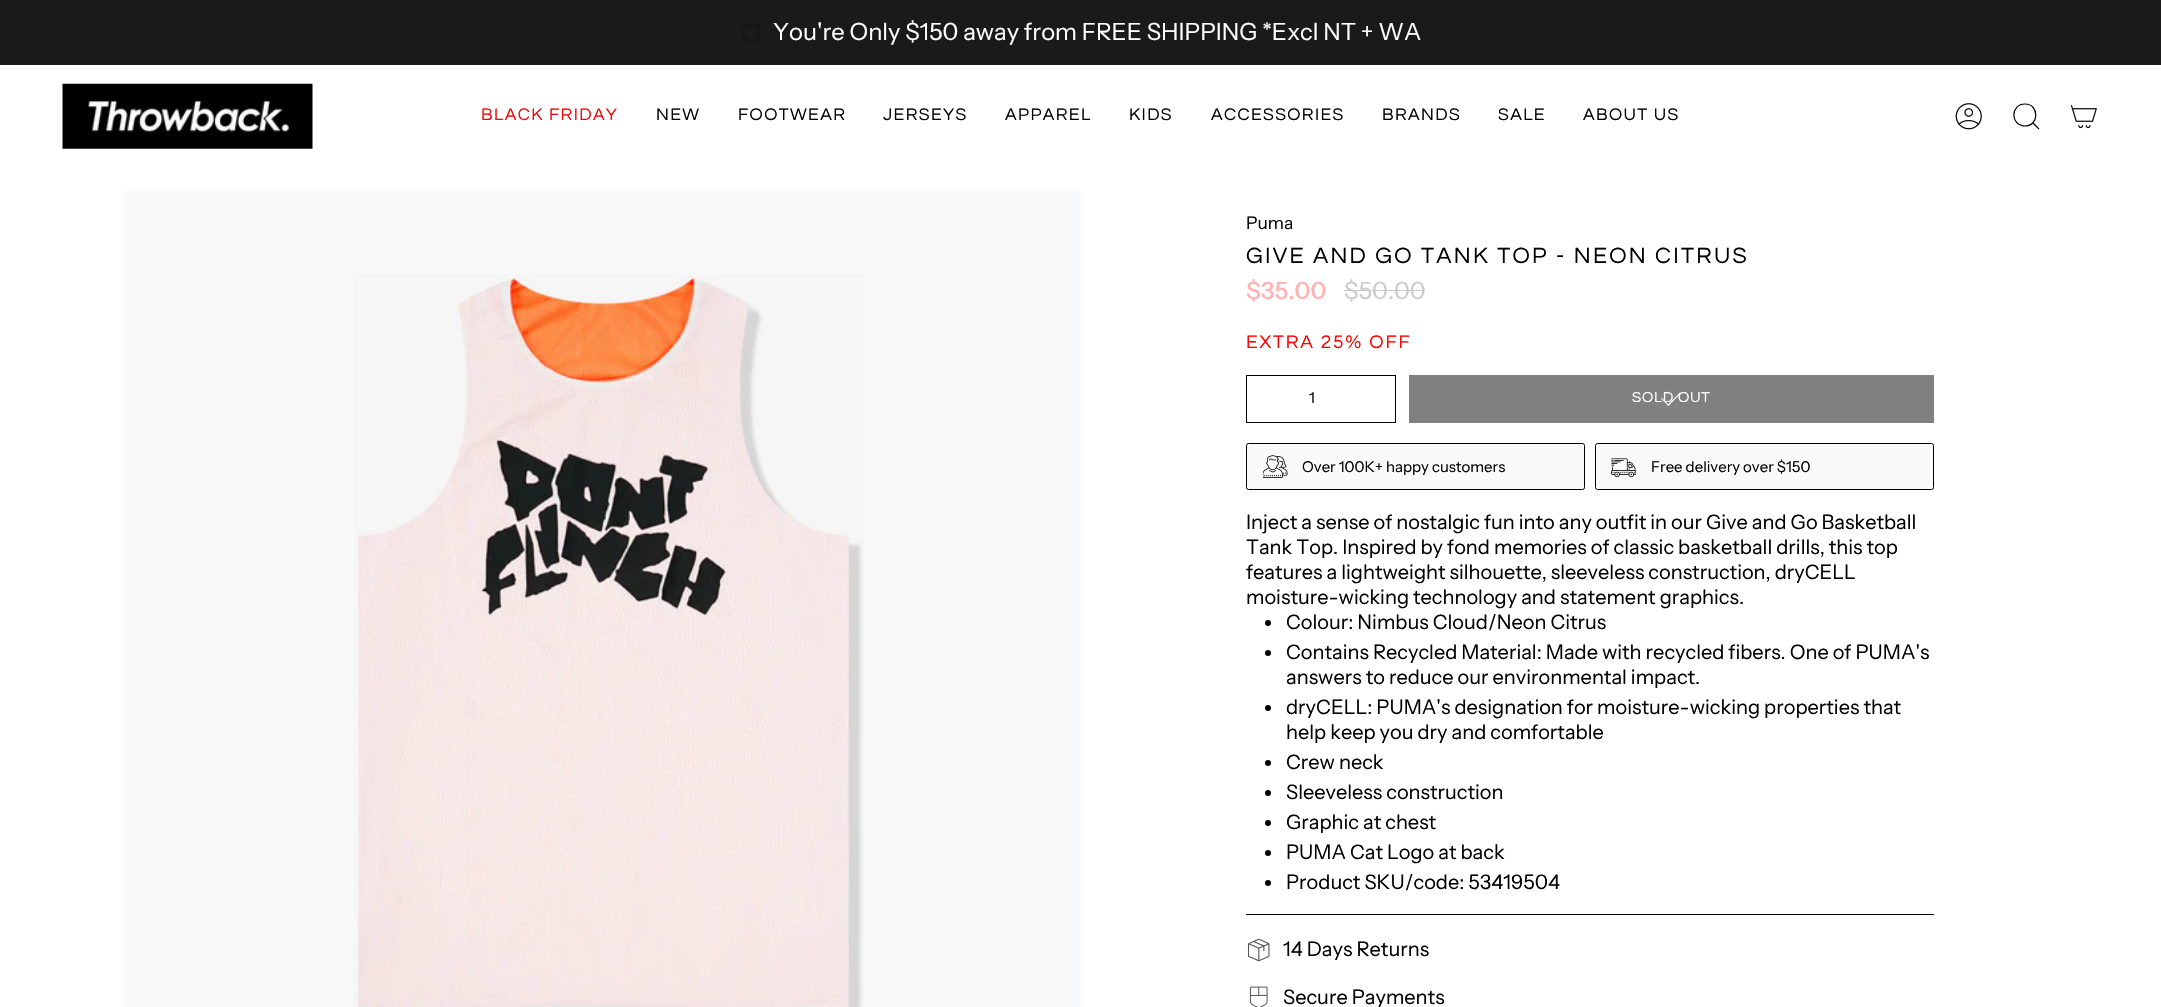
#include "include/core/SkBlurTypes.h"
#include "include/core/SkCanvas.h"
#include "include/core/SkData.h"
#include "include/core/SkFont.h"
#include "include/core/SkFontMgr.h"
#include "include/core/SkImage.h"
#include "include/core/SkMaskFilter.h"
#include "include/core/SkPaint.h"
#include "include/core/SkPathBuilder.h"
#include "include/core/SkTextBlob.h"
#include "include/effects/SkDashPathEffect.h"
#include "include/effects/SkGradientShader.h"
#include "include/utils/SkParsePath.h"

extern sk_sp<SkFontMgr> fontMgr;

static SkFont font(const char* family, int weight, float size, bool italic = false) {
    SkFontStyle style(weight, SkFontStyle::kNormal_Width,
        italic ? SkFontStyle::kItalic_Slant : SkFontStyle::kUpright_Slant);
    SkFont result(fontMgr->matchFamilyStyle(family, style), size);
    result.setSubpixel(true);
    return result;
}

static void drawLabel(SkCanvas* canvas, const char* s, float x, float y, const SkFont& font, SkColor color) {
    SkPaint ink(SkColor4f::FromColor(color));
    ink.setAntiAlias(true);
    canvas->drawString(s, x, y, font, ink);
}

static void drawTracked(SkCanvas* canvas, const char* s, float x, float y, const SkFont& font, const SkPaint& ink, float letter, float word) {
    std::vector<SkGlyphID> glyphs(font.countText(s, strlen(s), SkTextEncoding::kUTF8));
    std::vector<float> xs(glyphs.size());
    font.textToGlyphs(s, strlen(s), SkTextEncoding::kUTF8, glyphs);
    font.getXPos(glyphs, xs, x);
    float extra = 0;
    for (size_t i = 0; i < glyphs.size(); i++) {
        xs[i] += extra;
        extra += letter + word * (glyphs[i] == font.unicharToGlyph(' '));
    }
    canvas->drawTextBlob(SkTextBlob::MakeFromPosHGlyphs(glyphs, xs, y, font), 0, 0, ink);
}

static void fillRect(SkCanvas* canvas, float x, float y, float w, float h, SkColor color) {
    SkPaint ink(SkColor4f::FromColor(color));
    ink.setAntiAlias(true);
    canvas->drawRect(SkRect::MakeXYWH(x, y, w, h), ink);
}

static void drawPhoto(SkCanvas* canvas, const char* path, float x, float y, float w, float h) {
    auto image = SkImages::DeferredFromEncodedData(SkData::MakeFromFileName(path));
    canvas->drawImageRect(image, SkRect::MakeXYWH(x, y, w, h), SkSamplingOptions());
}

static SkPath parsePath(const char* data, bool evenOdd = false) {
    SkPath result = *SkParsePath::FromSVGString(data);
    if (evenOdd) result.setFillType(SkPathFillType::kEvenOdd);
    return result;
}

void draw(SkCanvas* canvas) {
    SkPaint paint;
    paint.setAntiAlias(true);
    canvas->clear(0xFFFFFFFF);
    fillRect(canvas, 0, 0, 2161, 65, 0xFF1A1A1A);
    paint.setStroke(true);
    paint.setStrokeWidth(2.5f);
    paint.setColor(0xFF151515);
    canvas->drawPath(parsePath("M751.5 24C740 24 740 41 751.5 41C763 41 763 24 751.5 24Z"), paint);
    SkFont font1 = font("Instrument Sans", 400, 23.75f);
    drawLabel(canvas, "You're Only $150 away from FREE SHIPPING *Excl NT + WA", 773, 40, font1, 0xFFFFFFFF);
    drawPhoto(canvas, "assets/img1.png", 62, 83, 251, 66);
    SkFont font2 = font("Questrial", 400, 17.5f);
    paint.setStroke(false);
    paint.setColor(0xFFF00A0A);
    drawTracked(canvas, "BLACK FRIDAY", 481, 120, font2, paint, 1.4f, 0);
    paint.setColor(0xFF000000);
    drawTracked(canvas, "NEW", 656, 120, font2, paint, 1.4f, 0);
    drawTracked(canvas, "FOOTWEAR", 738, 120, font2, paint, 1.4f, 0);
    drawTracked(canvas, "JERSEYS", 883, 120, font2, paint, 1.4f, 0);
    drawTracked(canvas, "APPAREL", 1005, 120, font2, paint, 1.4f, 0);
    drawTracked(canvas, "KIDS", 1129, 120, font2, paint, 1.4f, 0);
    drawTracked(canvas, "ACCESSORIES", 1211, 120, font2, paint, 1.4f, 0);
    drawTracked(canvas, "BRANDS", 1382, 120, font2, paint, 1.4f, 0);
    drawTracked(canvas, "SALE", 1498, 120, font2, paint, 1.4f, 0);
    drawTracked(canvas, "ABOUT US", 1583, 120, font2, paint, 1.4f, 0);
    drawPhoto(canvas, "assets/img2.png", 1955, 103, 27, 27);
    paint.setStroke(true);
    paint.setStrokeWidth(1.2f);
    canvas->drawPath(parsePath("M2025 104C2039.5 104 2039.5 126.5 2024.5 126C2010 125 2010.5 104 2025 104ZM2032.5 122.5L2039 129"), paint);
    drawPhoto(canvas, "assets/img3.png", 2071, 105, 26, 24);
    fillRect(canvas, 125, 191, 956, 816, 0xFFF7F9FA);
    drawPhoto(canvas, "assets/img4.png", 353, 273, 512, 734);
    SkFont font3 = font("Instrument Sans", 400, 17.5f);
    drawLabel(canvas, "Puma", 1246, 229, font3, 0xFF000000);
    SkFont font4 = font("Questrial", 400, 23);
    paint.setStroke(false);
    drawTracked(canvas, "GIVE AND GO TANK TOP - NEON CITRUS", 1246, 263, font4, paint, 2.3f, 0);
    SkFont font5 = font("Instrument Sans", 500, 23.75f);
    drawLabel(canvas, "$35.00", 1246, 299, font5, 0xFFFFB3B3);
    drawLabel(canvas, "$50.00", 1344, 299, font1, 0xFFCACACA);
    fillRect(canvas, 1344, 290, 81, 1, 0xFFCACACA);
    SkFont font6 = font("Questrial", 400, 19);
    paint.setColor(0xFFFF0000);
    drawTracked(canvas, "EXTRA 25% OFF", 1246, 348, font6, paint, 1.9f, 0);
    paint.setStroke(true);
    paint.setStrokeWidth(1);
    paint.setColor(0xFF000000);
    canvas->drawRect(SkRect::MakeXYWH(1246.5f, 375.5f, 149, 47), paint);
    SkFont font7 = font("Instrument Sans", 400, 15);
    drawLabel(canvas, "1", 1309, 403, font7, 0xFF000000);
    fillRect(canvas, 1409, 375, 525, 48, 0xFF808080);
    paint.setStroke(false);
    paint.setColor(0xFFFFFFFF);
    canvas->drawPath(parsePath("M1667.5 405L1680 392.5L1680.5 393.5L1668.5 406Z"), paint);
    canvas->drawPath(parsePath("M1661 398.5L1662 398L1669 405L1668.5 406Z"), paint);
    paint.setStroke(true);
    paint.setStrokeWidth(1.2f);
    paint.setColor(0x0DFFFFFF);
    canvas->drawCircle(1671, 399, 9, paint);
    SkFont font8 = font("Questrial", 400, 15);
    paint.setStroke(false);
    paint.setColor(0xFFFFFFFF);
    drawTracked(canvas, "SOLD OUT", 1632, 402, font8, paint, 0.75f, 0);
    paint.setColor(0xFFFAFAFA);
    canvas->drawRoundRect(SkRect::MakeXYWH(1246.5f, 443.5f, 338, 46), 2, 2, paint);
    paint.setStroke(true);
    paint.setStrokeWidth(1);
    paint.setColor(0xFF000000);
    canvas->drawRoundRect(SkRect::MakeXYWH(1246.5f, 443.5f, 338, 46), 2, 2, paint);
    drawPhoto(canvas, "assets/img5.png", 1263, 455, 25, 23);
    drawLabel(canvas, "Over 100K+ happy customers", 1302, 472, font7, 0xFF000000);
    paint.setStroke(false);
    paint.setColor(0xFFFAFAFA);
    canvas->drawRoundRect(SkRect::MakeXYWH(1595.5f, 443.5f, 338, 46), 2, 2, paint);
    paint.setStroke(true);
    paint.setColor(0xFF000000);
    canvas->drawRoundRect(SkRect::MakeXYWH(1595.5f, 443.5f, 338, 46), 2, 2, paint);
    drawPhoto(canvas, "assets/img6.png", 1611, 458, 25, 20);
    drawLabel(canvas, "Free delivery over $150", 1651, 472, font7, 0xFF000000);
    SkFont font9 = font("Instrument Sans", 400, 20);
    drawLabel(canvas, "Inject a sense of nostalgic fun into any outfit in our Give and Go Basketball", 1246, 529, font9, 0xFF000000);
    drawLabel(canvas, "Tank Top. Inspired by fond memories of classic basketball drills, this top", 1246, 554, font9, 0xFF000000);
    drawLabel(canvas, "features a lightweight silhouette, sleeveless construction, dryCELL", 1246, 579, font9, 0xFF000000);
    drawLabel(canvas, "moisture-wicking technology and statement graphics.", 1246, 604, font9, 0xFF000000);
    paint.setStroke(false);
    canvas->drawCircle(1268, 623, 3, paint);
    drawLabel(canvas, "Colour: Nimbus Cloud/Neon Citrus", 1286, 629, font9, 0xFF000000);
    canvas->drawCircle(1268, 653, 3, paint);
    drawLabel(canvas, "Contains Recycled Material: Made with recycled fibers. One of PUMA's", 1286, 659, font9, 0xFF000000);
    drawLabel(canvas, "answers to reduce our environmental impact.", 1286, 684, font9, 0xFF000000);
    canvas->drawCircle(1268, 708, 3, paint);
    drawLabel(canvas, "dryCELL: PUMA's designation for moisture-wicking properties that", 1286, 714, font9, 0xFF000000);
    drawLabel(canvas, "help keep you dry and comfortable", 1286, 739, font9, 0xFF000000);
    canvas->drawCircle(1268, 763, 3, paint);
    drawLabel(canvas, "Crew neck", 1286, 769, font9, 0xFF000000);
    canvas->drawCircle(1268, 793, 3, paint);
    drawLabel(canvas, "Sleeveless construction", 1286, 799, font9, 0xFF000000);
    canvas->drawCircle(1268, 823, 3, paint);
    drawLabel(canvas, "Graphic at chest", 1286, 829, font9, 0xFF000000);
    canvas->drawCircle(1268, 853, 3, paint);
    drawLabel(canvas, "PUMA Cat Logo at back", 1286, 859, font9, 0xFF000000);
    canvas->drawCircle(1268, 883, 3, paint);
    drawLabel(canvas, "Product SKU/code: 53419504", 1286, 889, font9, 0xFF000000);
    fillRect(canvas, 1246, 914, 688, 1, 0xFF000000);
    drawPhoto(canvas, "assets/img7.png", 1247, 938, 23, 24);
    drawLabel(canvas, "14 Days Returns", 1283, 956, font9, 0xFF000000);
    drawPhoto(canvas, "assets/img8.png", 1249, 986, 19, 21);
    drawLabel(canvas, "Secure Payments", 1283, 1004, font9, 0xFF000000);
}
